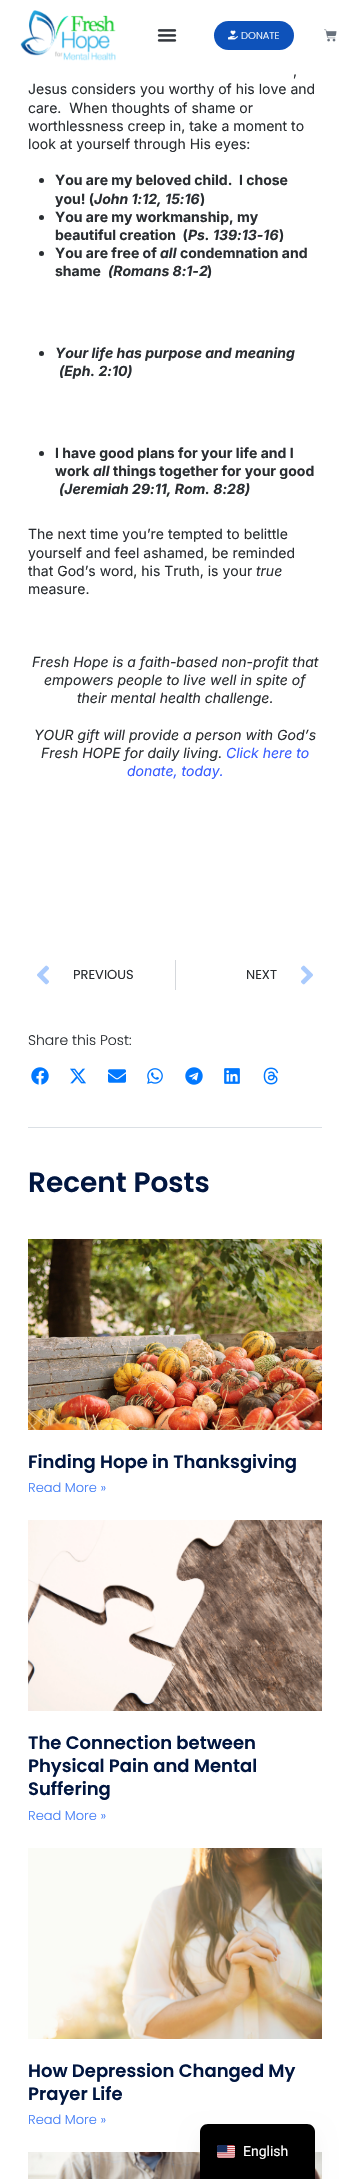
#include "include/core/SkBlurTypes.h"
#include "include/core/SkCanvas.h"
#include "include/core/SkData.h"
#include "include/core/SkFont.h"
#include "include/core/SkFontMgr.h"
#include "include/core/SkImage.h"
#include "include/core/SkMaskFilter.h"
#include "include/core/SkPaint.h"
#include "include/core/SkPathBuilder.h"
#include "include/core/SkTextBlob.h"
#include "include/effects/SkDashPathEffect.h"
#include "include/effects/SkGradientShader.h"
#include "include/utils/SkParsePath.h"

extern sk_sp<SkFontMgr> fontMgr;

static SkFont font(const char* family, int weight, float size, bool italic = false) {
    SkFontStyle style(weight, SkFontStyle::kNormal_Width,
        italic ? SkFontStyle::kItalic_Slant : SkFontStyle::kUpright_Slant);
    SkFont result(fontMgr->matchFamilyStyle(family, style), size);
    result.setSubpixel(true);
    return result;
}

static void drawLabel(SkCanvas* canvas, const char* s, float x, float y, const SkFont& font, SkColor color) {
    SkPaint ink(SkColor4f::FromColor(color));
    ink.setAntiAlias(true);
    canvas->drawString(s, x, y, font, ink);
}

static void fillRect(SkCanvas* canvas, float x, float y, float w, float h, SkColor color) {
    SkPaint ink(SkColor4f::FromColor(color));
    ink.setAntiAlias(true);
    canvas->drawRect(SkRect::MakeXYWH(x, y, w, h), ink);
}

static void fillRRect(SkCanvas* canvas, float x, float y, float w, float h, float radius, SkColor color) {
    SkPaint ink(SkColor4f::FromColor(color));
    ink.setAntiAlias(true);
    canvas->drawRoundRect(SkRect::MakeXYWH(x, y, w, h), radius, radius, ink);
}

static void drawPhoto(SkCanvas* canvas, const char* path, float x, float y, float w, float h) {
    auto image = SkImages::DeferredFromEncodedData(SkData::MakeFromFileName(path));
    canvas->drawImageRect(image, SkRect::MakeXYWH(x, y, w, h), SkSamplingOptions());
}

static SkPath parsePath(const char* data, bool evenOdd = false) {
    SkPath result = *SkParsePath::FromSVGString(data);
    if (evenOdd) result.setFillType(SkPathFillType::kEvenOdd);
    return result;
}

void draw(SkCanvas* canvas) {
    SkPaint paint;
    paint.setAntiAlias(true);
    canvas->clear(0xFFFFFFFF);
    drawPhoto(canvas, "assets/img1.png", 20, 10, 96, 51);
    drawPhoto(canvas, "assets/img2.png", 157, 29, 20, 13);
    fillRRect(canvas, 214, 21, 80, 29, 14.5f, 0xFF0E52BA);
    drawPhoto(canvas, "assets/img3.png", 228, 30, 10, 10);
    SkFont font1 = font("Poppins", 300, 10);
    drawLabel(canvas, "DONATE", 241, 39, font1, 0xFFFFFFFF);
    drawPhoto(canvas, "assets/img4.png", 324, 29, 13, 13);
    SkFont font2 = font("Inter", 400, 14);
    drawLabel(canvas, ",", 293, 76, font2, 0xFF2A2E32);
    drawLabel(canvas, "Jesus considers you worthy of his love and", 28, 94, font2, 0xFF2A2E32);
    drawLabel(canvas, "care.  When thoughts of shame or", 28, 113, font2, 0xFF2A2E32);
    drawLabel(canvas, "worthlessness creep in, take a moment to", 28, 131, font2, 0xFF2A2E32);
    drawLabel(canvas, "look at yourself through His eyes:", 28, 149, font2, 0xFF2A2E32);
    paint.setColor(0xFF2A2E32);
    canvas->drawCircle(41.5f, 180.5f, 2.5f, paint);
    SkFont font3 = font("Inter", 700, 14);
    drawLabel(canvas, "You are my beloved child.  I chose", 55, 185, font3, 0xFF2A2E32);
    drawLabel(canvas, "you! (", 55, 204, font3, 0xFF2A2E32);
    SkFont font4 = font("Inter", 700, 14, true);
    drawLabel(canvas, "John 1:12, 15:16", 94, 204, font4, 0xFF2A2E32);
    drawLabel(canvas, ")", 200, 204, font3, 0xFF2A2E32);
    canvas->drawCircle(41.5f, 217.5f, 2.5f, paint);
    drawLabel(canvas, "You are my workmanship, my", 55, 222, font3, 0xFF2A2E32);
    drawLabel(canvas, "beautiful creation  (", 55, 240, font3, 0xFF2A2E32);
    drawLabel(canvas, "Ps. 139:13-16", 188, 240, font4, 0xFF2A2E32);
    drawLabel(canvas, ")", 279, 240, font3, 0xFF2A2E32);
    canvas->drawCircle(41.5f, 253.5f, 2.5f, paint);
    drawLabel(canvas, "You are free of", 55, 258, font3, 0xFF2A2E32);
    drawLabel(canvas, "all", 160, 258, font4, 0xFF2A2E32);
    drawLabel(canvas, "condemnation and", 180, 258, font3, 0xFF2A2E32);
    drawLabel(canvas, "shame", 55, 276, font3, 0xFF2A2E32);
    drawLabel(canvas, "(Romans 8:1-2", 108, 276, font4, 0xFF2A2E32);
    drawLabel(canvas, ")", 207, 276, font3, 0xFF2A2E32);
    canvas->drawCircle(41.5f, 353.5f, 2.5f, paint);
    drawLabel(canvas, "Your life has purpose and meaning", 55, 358, font4, 0xFF2A2E32);
    drawLabel(canvas, "(Eph. 2:10)", 59, 376, font4, 0xFF2A2E32);
    canvas->drawCircle(41.5f, 453.5f, 2.5f, paint);
    drawLabel(canvas, "I have good plans for your life and I", 55, 458, font3, 0xFF2A2E32);
    drawLabel(canvas, "work", 55, 476, font3, 0xFF2A2E32);
    drawLabel(canvas, "all", 93, 476, font4, 0xFF2A2E32);
    drawLabel(canvas, "things together for your good", 113, 476, font3, 0xFF2A2E32);
    drawLabel(canvas, "(Jeremiah 29:11, Rom. 8:28)", 59, 494, font4, 0xFF2A2E32);
    drawLabel(canvas, "The next time you’re tempted to belittle", 28, 539, font2, 0xFF2A2E32);
    drawLabel(canvas, "yourself and feel ashamed, be reminded", 28, 558, font2, 0xFF2A2E32);
    drawLabel(canvas, "that God’s word, his Truth, is your", 28, 576, font2, 0xFF2A2E32);
    SkFont font5 = font("Inter", 400, 14, true);
    drawLabel(canvas, "true", 256, 576, font5, 0xFF2A2E32);
    drawLabel(canvas, "measure.", 28, 594, font2, 0xFF2A2E32);
    drawLabel(canvas, "Fresh Hope is a faith-based non-profit that", 32, 667, font5, 0xFF2A2E32);
    drawLabel(canvas, "empowers people to live well in spite of", 44, 685, font5, 0xFF2A2E32);
    drawLabel(canvas, "their mental health challenge.", 77, 703, font5, 0xFF2A2E32);
    drawLabel(canvas, "YOUR gift will provide a person with God’s", 34, 740, font5, 0xFF2A2E32);
    drawLabel(canvas, "Fresh HOPE for daily living.", 41, 758, font5, 0xFF2A2E32);
    drawLabel(canvas, "Click here to", 226, 758, font5, 0xFF385DFF);
    drawLabel(canvas, "donate, today.", 127, 776, font5, 0xFF385DFF);
    drawPhoto(canvas, "assets/img5.png", 37, 965, 12, 20);
    SkFont font6 = font("Poppins", 400, 13);
    drawLabel(canvas, "PREVIOUS", 73, 979, font6, 0xFF2A2E32);
    fillRect(canvas, 175, 960, 1, 30, 0xFFD5D8DC);
    drawLabel(canvas, "NEXT", 246, 979, font6, 0xFF2A2E32);
    drawPhoto(canvas, "assets/img6.png", 301, 965, 12, 20);
    SkFont font7 = font("Poppins", 300, 14);
    drawLabel(canvas, "Share this Post:", 28, 1045, font7, 0xFF2A2E32);
    drawPhoto(canvas, "assets/img7.png", 31, 1067, 18, 18);
    drawPhoto(canvas, "assets/img8.png", 70, 1068, 16, 16);
    drawPhoto(canvas, "assets/img9.png", 108, 1069, 18, 14);
    drawPhoto(canvas, "assets/img10.png", 147, 1068, 16, 16);
    drawPhoto(canvas, "assets/img11.png", 185, 1067, 18, 18);
    drawPhoto(canvas, "assets/img12.png", 224, 1068, 16, 16);
    drawPhoto(canvas, "assets/img13.png", 263, 1067, 16, 18);
    fillRect(canvas, 28, 1127, 294, 1, 0xFFDBE0E5);
    SkFont font8 = font("Poppins", 600, 28);
    drawLabel(canvas, "Recent Posts", 28, 1192, font8, 0xFF011640);
    drawPhoto(canvas, "assets/img14.png", 28, 1239, 294, 191);
    SkFont font9 = font("Poppins", 600, 18);
    drawLabel(canvas, "Finding Hope in Thanksgiving", 28, 1468, font9, 0xFF011640);
    SkFont font10 = font("Poppins", 300, 13);
    drawLabel(canvas, "Read More »", 28, 1492, font10, 0xFF467FF7);
    drawPhoto(canvas, "assets/img15.png", 28, 1520, 294, 191);
    drawLabel(canvas, "The Connection between", 28, 1749, font9, 0xFF011640);
    drawLabel(canvas, "Physical Pain and Mental", 28, 1772, font9, 0xFF011640);
    drawLabel(canvas, "Suffering", 28, 1795, font9, 0xFF011640);
    drawLabel(canvas, "Read More »", 28, 1820, font10, 0xFF467FF7);
    drawPhoto(canvas, "assets/img16.png", 28, 1848, 294, 191);
    drawLabel(canvas, "How Depression Changed My", 28, 2077, font9, 0xFF011640);
    drawLabel(canvas, "Prayer Life", 28, 2100, font9, 0xFF011640);
    drawLabel(canvas, "Read More »", 28, 2124, font10, 0xFF467FF7);
    drawPhoto(canvas, "assets/img17.png", 28, 2152, 294, 27);
    paint.setColor(0x0D000000);
    paint.setMaskFilter(SkMaskFilter::MakeBlur(kNormal_SkBlurStyle, 10));
    canvas->drawRoundRect(SkRect::MakeXYWH(200, 2134, 115, 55), 8, 8, paint);
    paint.setMaskFilter(nullptr);
    paint.setColor(0xFF000000);
    canvas->drawPath(parsePath("M208 2124H307C311.5 2124 315 2127.5 315 2132V2179H200V2132C200 2127.5 203.5 2124 208 2124Z"), paint);
    drawPhoto(canvas, "assets/img18.png", 217, 2145, 18, 13);
    SkFont font11 = font("Roboto", 400, 14);
    drawLabel(canvas, "English", 243, 2156, font11, 0xFFFFFFFF);
}
